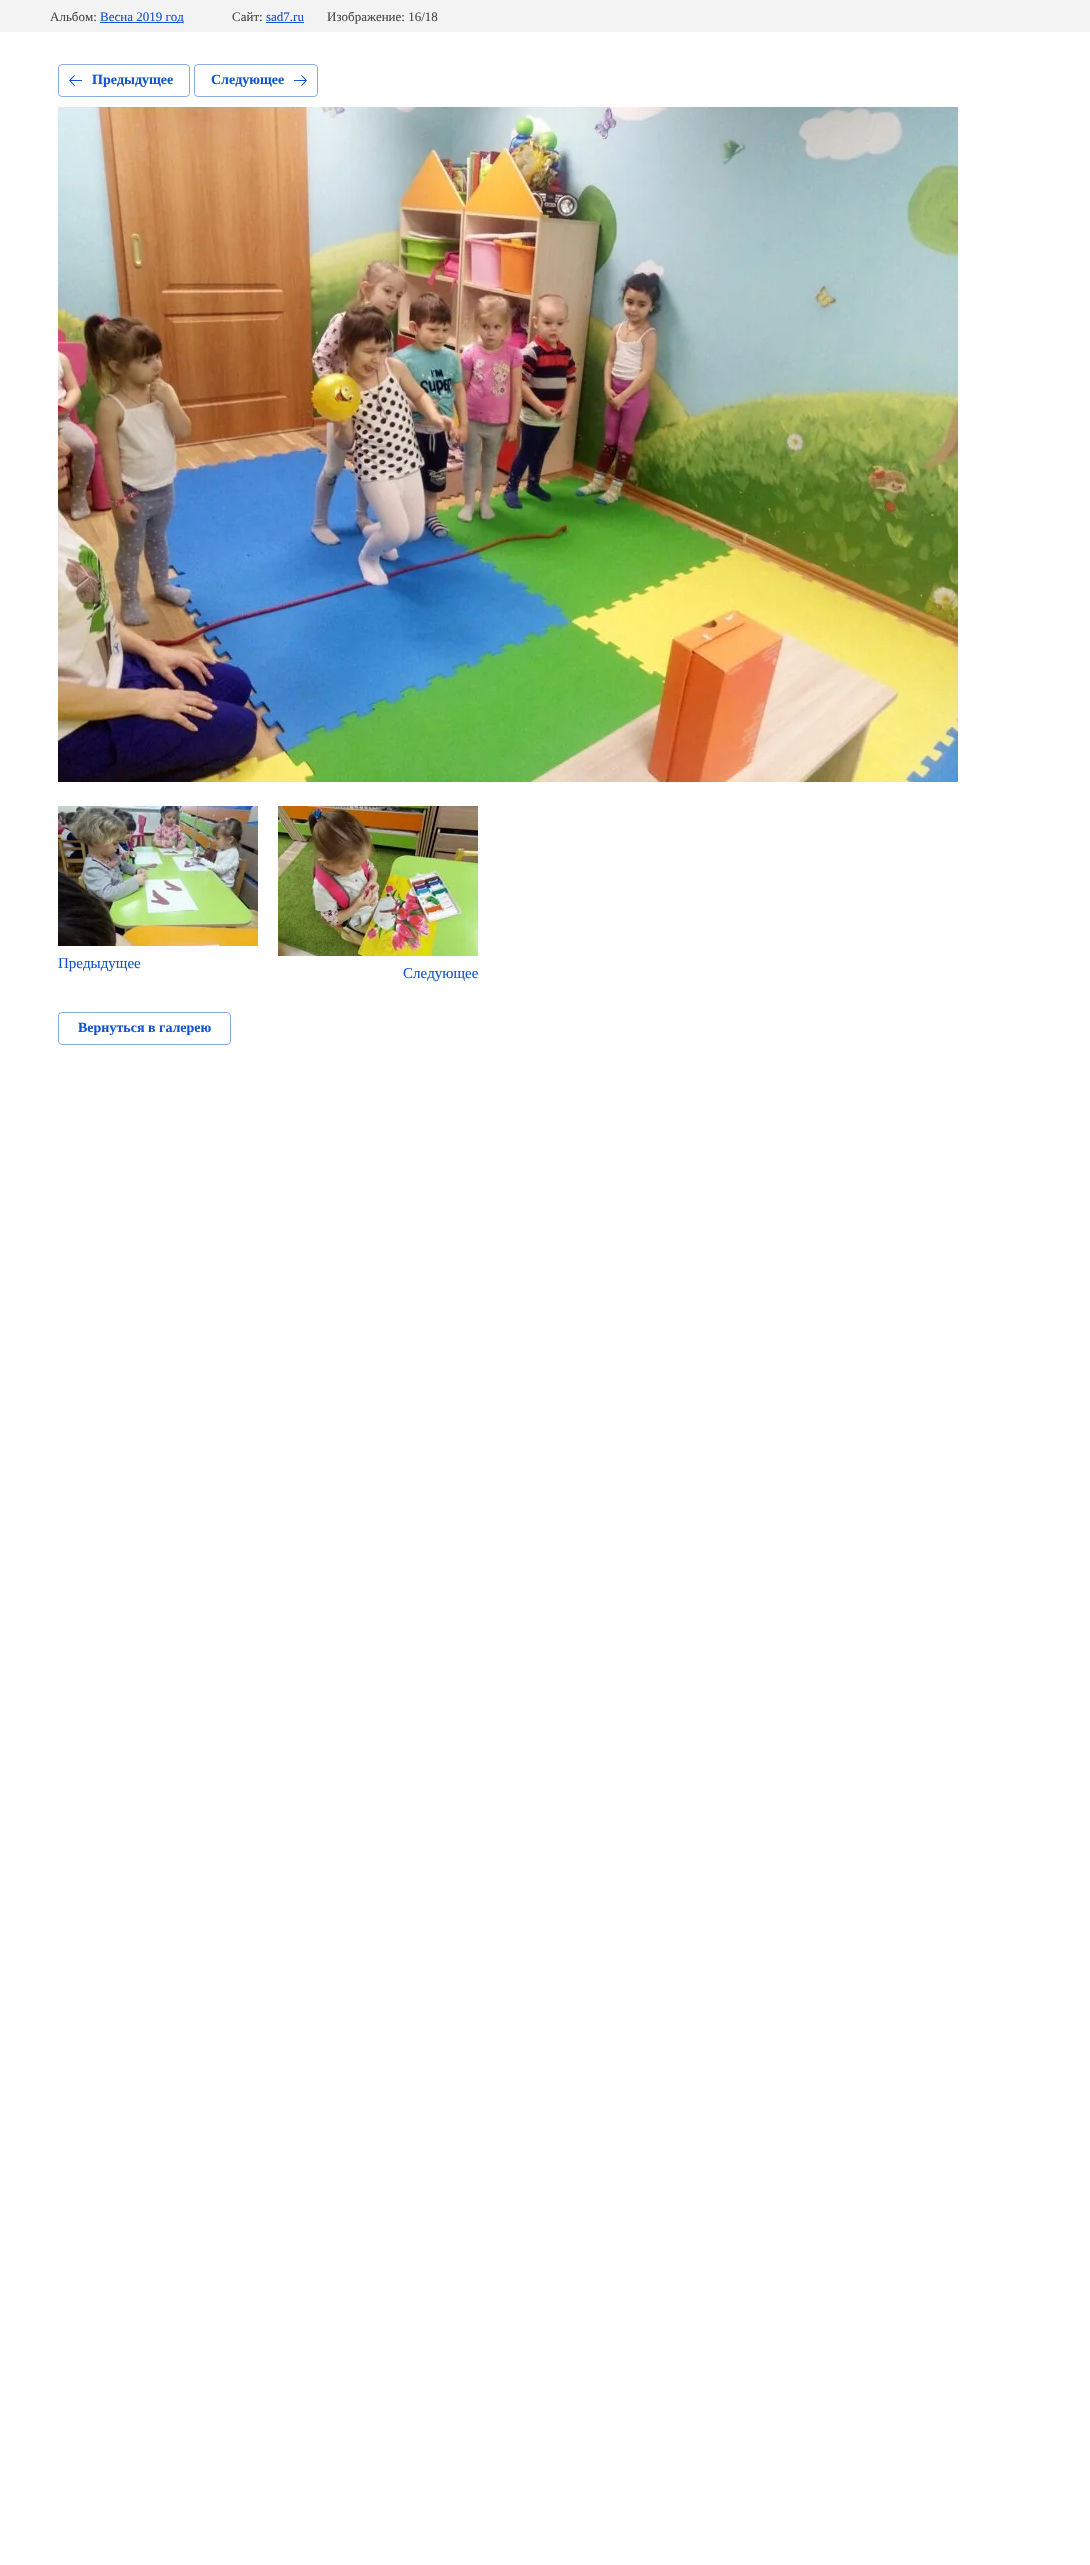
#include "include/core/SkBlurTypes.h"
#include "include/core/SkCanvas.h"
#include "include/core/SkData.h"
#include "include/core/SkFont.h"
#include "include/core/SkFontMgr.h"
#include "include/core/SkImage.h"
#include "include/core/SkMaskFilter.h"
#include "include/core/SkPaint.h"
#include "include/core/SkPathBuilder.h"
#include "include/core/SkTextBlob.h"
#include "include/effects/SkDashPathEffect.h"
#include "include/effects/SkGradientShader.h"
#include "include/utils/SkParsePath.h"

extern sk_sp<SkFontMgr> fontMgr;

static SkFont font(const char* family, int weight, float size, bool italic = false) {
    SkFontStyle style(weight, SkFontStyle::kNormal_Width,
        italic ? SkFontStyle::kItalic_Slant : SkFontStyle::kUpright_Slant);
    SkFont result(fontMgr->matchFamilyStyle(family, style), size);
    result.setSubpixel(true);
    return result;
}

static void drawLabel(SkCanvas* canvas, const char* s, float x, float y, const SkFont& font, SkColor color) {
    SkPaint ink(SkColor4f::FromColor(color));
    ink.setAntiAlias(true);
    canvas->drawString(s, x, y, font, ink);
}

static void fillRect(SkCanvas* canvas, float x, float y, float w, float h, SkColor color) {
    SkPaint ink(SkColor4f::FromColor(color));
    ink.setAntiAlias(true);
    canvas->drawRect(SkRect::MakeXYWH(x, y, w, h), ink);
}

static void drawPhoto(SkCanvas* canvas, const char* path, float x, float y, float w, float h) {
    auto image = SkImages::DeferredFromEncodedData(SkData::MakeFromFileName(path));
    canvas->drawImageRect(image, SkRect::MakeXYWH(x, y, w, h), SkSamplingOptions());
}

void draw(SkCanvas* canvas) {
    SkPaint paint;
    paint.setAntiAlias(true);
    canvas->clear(0xFFFFFFFF);
    fillRect(canvas, 0, 0, 1090, 32, 0xFFF3F3F3);
    SkFont font1 = font("Liberation Serif", 400, 13);
    drawLabel(canvas, "Альбом:", 50, 21, font1, 0xFF484848);
    fillRect(canvas, 100, 22, 83, 1, 0xFF1155CC);
    drawLabel(canvas, "Весна 2019 год", 100, 21, font1, 0xFF1155CC);
    drawLabel(canvas, "Сайт:", 232, 21, font1, 0xFF484848);
    drawLabel(canvas, "sad7.ru", 266, 21, font1, 0xFF1155CC);
    fillRect(canvas, 266, 22, 38, 1, 0xFF1155CC);
    drawLabel(canvas, "Изображение: 16/18", 327, 21, font1, 0xFF484848);
    paint.setStroke(true);
    paint.setStrokeWidth(1);
    paint.setColor(0xFF88AAE6);
    canvas->drawRoundRect(SkRect::MakeXYWH(58.5f, 64.5f, 131, 32), 3.5f, 3.5f, paint);
    drawPhoto(canvas, "assets/img1.png", 69, 75, 13, 11);
    SkFont font2 = font("Liberation Serif", 700, 14);
    drawLabel(canvas, "Предыдущее", 92, 84, font2, 0xFF1155CC);
    canvas->drawRoundRect(SkRect::MakeXYWH(194.5f, 64.5f, 123, 32), 3.5f, 3.5f, paint);
    drawLabel(canvas, "Следующее", 211, 84, font2, 0xFF1155CC);
    drawPhoto(canvas, "assets/img2.png", 294, 75, 13, 11);
    drawPhoto(canvas, "assets/img3.png", 58, 107, 900, 675);
    drawPhoto(canvas, "assets/img4.png", 58, 806, 200, 140);
    SkFont font3 = font("Liberation Serif", 400, 15);
    drawLabel(canvas, "Предыдущее", 58, 968, font3, 0xFF1155CC);
    drawPhoto(canvas, "assets/img5.png", 278, 806, 200, 150);
    drawLabel(canvas, "Следующее", 403, 978, font3, 0xFF1155CC);
    canvas->drawRoundRect(SkRect::MakeXYWH(58.5f, 1012.5f, 172, 32), 3.5f, 3.5f, paint);
    drawLabel(canvas, "Вернуться в галерею", 78, 1032, font2, 0xFF1155CC);
}
